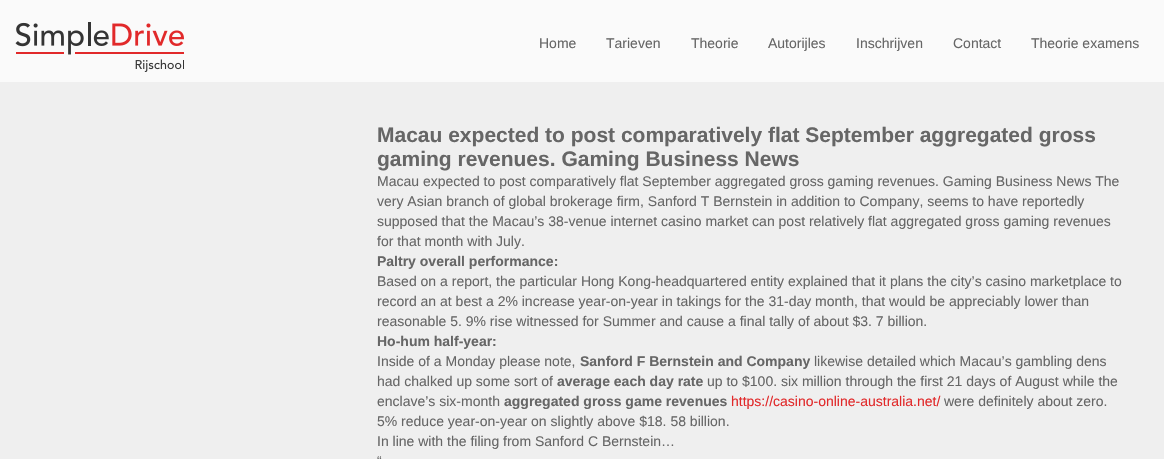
#include "include/core/SkBlurTypes.h"
#include "include/core/SkCanvas.h"
#include "include/core/SkData.h"
#include "include/core/SkFont.h"
#include "include/core/SkFontMgr.h"
#include "include/core/SkImage.h"
#include "include/core/SkMaskFilter.h"
#include "include/core/SkPaint.h"
#include "include/core/SkPathBuilder.h"
#include "include/core/SkTextBlob.h"
#include "include/effects/SkDashPathEffect.h"
#include "include/effects/SkGradientShader.h"
#include "include/utils/SkParsePath.h"

extern sk_sp<SkFontMgr> fontMgr;

static SkFont font(const char* family, int weight, float size, bool italic = false) {
    SkFontStyle style(weight, SkFontStyle::kNormal_Width,
        italic ? SkFontStyle::kItalic_Slant : SkFontStyle::kUpright_Slant);
    SkFont result(fontMgr->matchFamilyStyle(family, style), size);
    result.setSubpixel(true);
    return result;
}

static void drawLabel(SkCanvas* canvas, const char* s, float x, float y, const SkFont& font, SkColor color) {
    SkPaint ink(SkColor4f::FromColor(color));
    ink.setAntiAlias(true);
    canvas->drawString(s, x, y, font, ink);
}

static void fillRect(SkCanvas* canvas, float x, float y, float w, float h, SkColor color) {
    SkPaint ink(SkColor4f::FromColor(color));
    ink.setAntiAlias(true);
    canvas->drawRect(SkRect::MakeXYWH(x, y, w, h), ink);
}

static void drawPhoto(SkCanvas* canvas, const char* path, float x, float y, float w, float h) {
    auto image = SkImages::DeferredFromEncodedData(SkData::MakeFromFileName(path));
    canvas->drawImageRect(image, SkRect::MakeXYWH(x, y, w, h), SkSamplingOptions());
}

void draw(SkCanvas* canvas) {
    SkPaint paint;
    paint.setAntiAlias(true);
    canvas->clear(0xFFEFEFEF);
    fillRect(canvas, 0, 0, 1164, 82, 0xFFFAFAFA);
    drawPhoto(canvas, "assets/img1.png", 15, 22, 169, 50);
    SkFont font1 = font("Liberation Sans", 400, 14);
    drawLabel(canvas, "Home", 539, 48, font1, 0xFF666666);
    drawLabel(canvas, "Tarieven", 606, 48, font1, 0xFF666666);
    drawLabel(canvas, "Theorie", 691, 48, font1, 0xFF666666);
    drawLabel(canvas, "Autorijles", 768, 48, font1, 0xFF666666);
    drawLabel(canvas, "Inschrijven", 856, 48, font1, 0xFF666666);
    drawLabel(canvas, "Contact", 953, 48, font1, 0xFF666666);
    drawLabel(canvas, "Theorie examens", 1031, 48, font1, 0xFF666666);
    SkFont font2 = font("Liberation Sans", 700, 21);
    drawLabel(canvas, "Macau expected to post comparatively flat September aggregated gross", 377, 142, font2, 0xFF666666);
    drawLabel(canvas, "gaming revenues. Gaming Business News", 377, 166, font2, 0xFF666666);
    drawLabel(canvas, "Macau expected to post comparatively flat September aggregated gross gaming revenues. Gaming Business News The", 377, 186, font1, 0xFF666666);
    drawLabel(canvas, "very Asian branch of global brokerage firm, Sanford T Bernstein in addition to Company, seems to have reportedly", 377, 206, font1, 0xFF666666);
    drawLabel(canvas, "supposed that the Macau’s 38-venue internet casino market can post relatively flat aggregated gross gaming revenues", 377, 226, font1, 0xFF666666);
    drawLabel(canvas, "for that month with July.", 377, 246, font1, 0xFF666666);
    SkFont font3 = font("Liberation Sans", 700, 14);
    drawLabel(canvas, "Paltry overall performance:", 377, 266, font3, 0xFF666666);
    drawLabel(canvas, "Based on a report, the particular Hong Kong-headquartered entity explained that it plans the city’s casino marketplace to", 377, 286, font1, 0xFF666666);
    drawLabel(canvas, "record an at best a 2% increase year-on-year in takings for the 31-day month, that would be appreciably lower than", 377, 306, font1, 0xFF666666);
    drawLabel(canvas, "reasonable 5. 9% rise witnessed for Summer and cause a final tally of about $3. 7 billion.", 377, 326, font1, 0xFF666666);
    drawLabel(canvas, "Ho-hum half-year:", 377, 346, font3, 0xFF666666);
    drawLabel(canvas, "Inside of a Monday please note,", 377, 366, font1, 0xFF666666);
    drawLabel(canvas, "Sanford F Bernstein and Company", 580, 366, font3, 0xFF666666);
    drawLabel(canvas, "likewise detailed which Macau’s gambling dens", 814, 366, font1, 0xFF666666);
    drawLabel(canvas, "had chalked up some sort of", 377, 386, font1, 0xFF666666);
    drawLabel(canvas, "average each day rate", 557, 386, font3, 0xFF666666);
    drawLabel(canvas, "up to $100. six million through the first 21 days of August while the", 707, 386, font1, 0xFF666666);
    drawLabel(canvas, "enclave’s six-month", 377, 406, font1, 0xFF666666);
    drawLabel(canvas, "aggregated gross game revenues", 504, 406, font3, 0xFF666666);
    drawLabel(canvas, "https://casino-online-australia.net/", 731, 406, font1, 0xFFE1292A);
    drawLabel(canvas, "were definitely about zero.", 944, 406, font1, 0xFF666666);
    drawLabel(canvas, "5% reduce year-on-year on slightly above $18. 58 billion.", 377, 426, font1, 0xFF666666);
    drawLabel(canvas, "In line with the filing from Sanford C Bernstein…", 377, 446, font1, 0xFF666666);
    drawLabel(canvas, "“", 377, 466, font1, 0xFF666666);
}
